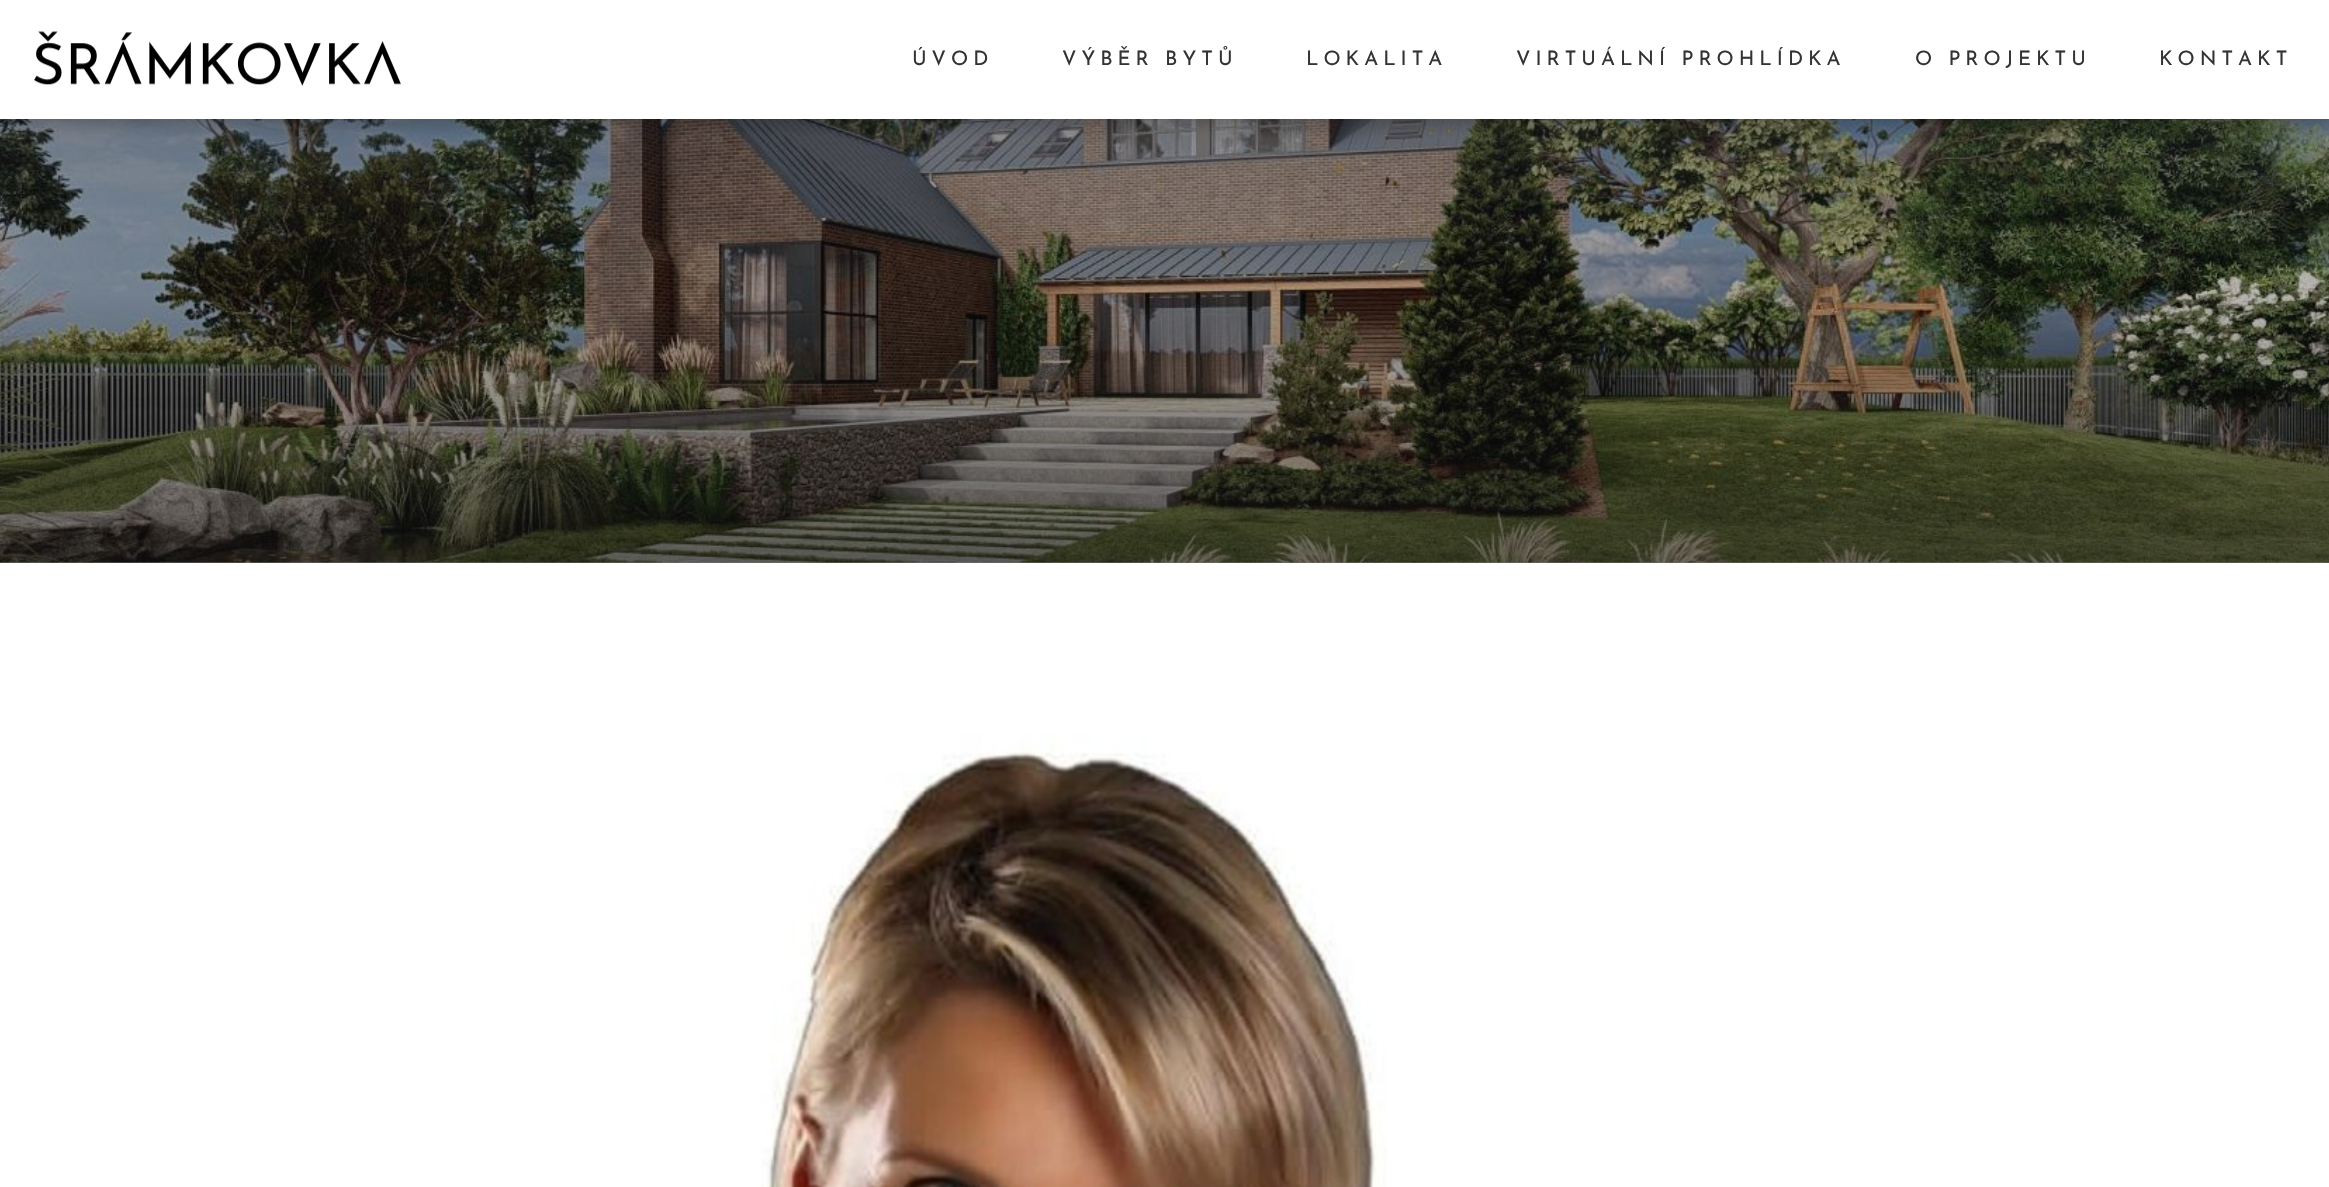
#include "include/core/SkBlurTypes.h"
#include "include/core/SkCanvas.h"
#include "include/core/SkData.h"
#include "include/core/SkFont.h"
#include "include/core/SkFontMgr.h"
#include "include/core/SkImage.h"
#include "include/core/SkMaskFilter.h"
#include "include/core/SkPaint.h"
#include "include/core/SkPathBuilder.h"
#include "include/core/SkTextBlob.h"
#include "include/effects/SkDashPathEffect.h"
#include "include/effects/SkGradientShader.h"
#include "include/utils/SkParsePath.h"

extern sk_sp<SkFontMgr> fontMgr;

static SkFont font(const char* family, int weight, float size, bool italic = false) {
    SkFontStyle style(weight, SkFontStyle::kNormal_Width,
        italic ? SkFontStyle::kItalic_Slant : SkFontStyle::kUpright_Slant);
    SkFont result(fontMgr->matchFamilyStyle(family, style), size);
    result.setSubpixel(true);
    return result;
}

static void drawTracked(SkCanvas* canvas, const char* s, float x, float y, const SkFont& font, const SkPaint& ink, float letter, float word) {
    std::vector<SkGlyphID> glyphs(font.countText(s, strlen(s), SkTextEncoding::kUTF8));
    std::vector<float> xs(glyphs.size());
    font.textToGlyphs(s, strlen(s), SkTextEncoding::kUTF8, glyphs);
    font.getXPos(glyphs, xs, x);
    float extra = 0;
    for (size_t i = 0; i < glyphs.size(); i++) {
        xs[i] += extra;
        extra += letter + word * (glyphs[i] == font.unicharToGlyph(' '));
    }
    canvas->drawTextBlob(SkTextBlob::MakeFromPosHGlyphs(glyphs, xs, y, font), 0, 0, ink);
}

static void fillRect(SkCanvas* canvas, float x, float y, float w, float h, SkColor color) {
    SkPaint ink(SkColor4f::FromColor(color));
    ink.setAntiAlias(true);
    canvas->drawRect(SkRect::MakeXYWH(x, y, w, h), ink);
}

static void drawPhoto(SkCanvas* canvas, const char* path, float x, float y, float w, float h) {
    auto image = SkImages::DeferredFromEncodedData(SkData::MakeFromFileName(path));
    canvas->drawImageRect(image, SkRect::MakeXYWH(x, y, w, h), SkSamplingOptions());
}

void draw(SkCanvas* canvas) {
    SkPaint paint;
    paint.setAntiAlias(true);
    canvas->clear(0xFFFFFFFF);
    drawPhoto(canvas, "assets/img2.png", 0, 119, 2329, 444);
    {
        const SkColor colors[] = {0x99121212, 0x47121212, 0x87272A37};
        const float stops[] = {0.01f, 0.48f, 1};
        const SkPoint ends[] = {{1165, 563}, {1165, 0}};
        paint.setShader(SkGradientShader::MakeLinear(ends, colors, stops, 3, SkTileMode::kClamp));
        paint.setAlpha(255);
    }
    canvas->drawRect(SkRect::MakeXYWH(0, 119, 2329, 444), paint);
    paint.setShader(nullptr);
    paint.setColor(0x47000000);
    paint.setMaskFilter(SkMaskFilter::MakeBlur(kNormal_SkBlurStyle, 9.5f));
    canvas->drawRect(SkRect::MakeXYWH(-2, 0, 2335, 124), paint);
    paint.setMaskFilter(nullptr);
    fillRect(canvas, 0, 0, 2329, 119, 0xFFFFFFFF);
    drawPhoto(canvas, "assets/img1.png", 34, 31, 367, 56);
    SkFont font1 = font("Josefin Sans", 400, 20);
    paint.setColor(0xFF333333);
    drawTracked(canvas, "ÚVOD", 912, 65, font1, paint, 5, 0);
    drawTracked(canvas, "VÝBĚR BYTŮ", 1062, 65, font1, paint, 5, 0);
    drawTracked(canvas, "LOKALITA", 1306, 65, font1, paint, 5, 0);
    drawTracked(canvas, "VIRTUÁLNÍ PROHLÍDKA", 1516, 65, font1, paint, 5, 0);
    drawTracked(canvas, "O PROJEKTU", 1915, 65, font1, paint, 5, 0);
    drawTracked(canvas, "KONTAKT", 2159, 65, font1, paint, 5, 0);
    drawPhoto(canvas, "assets/img3.png", 761, 732, 626, 455);
}
